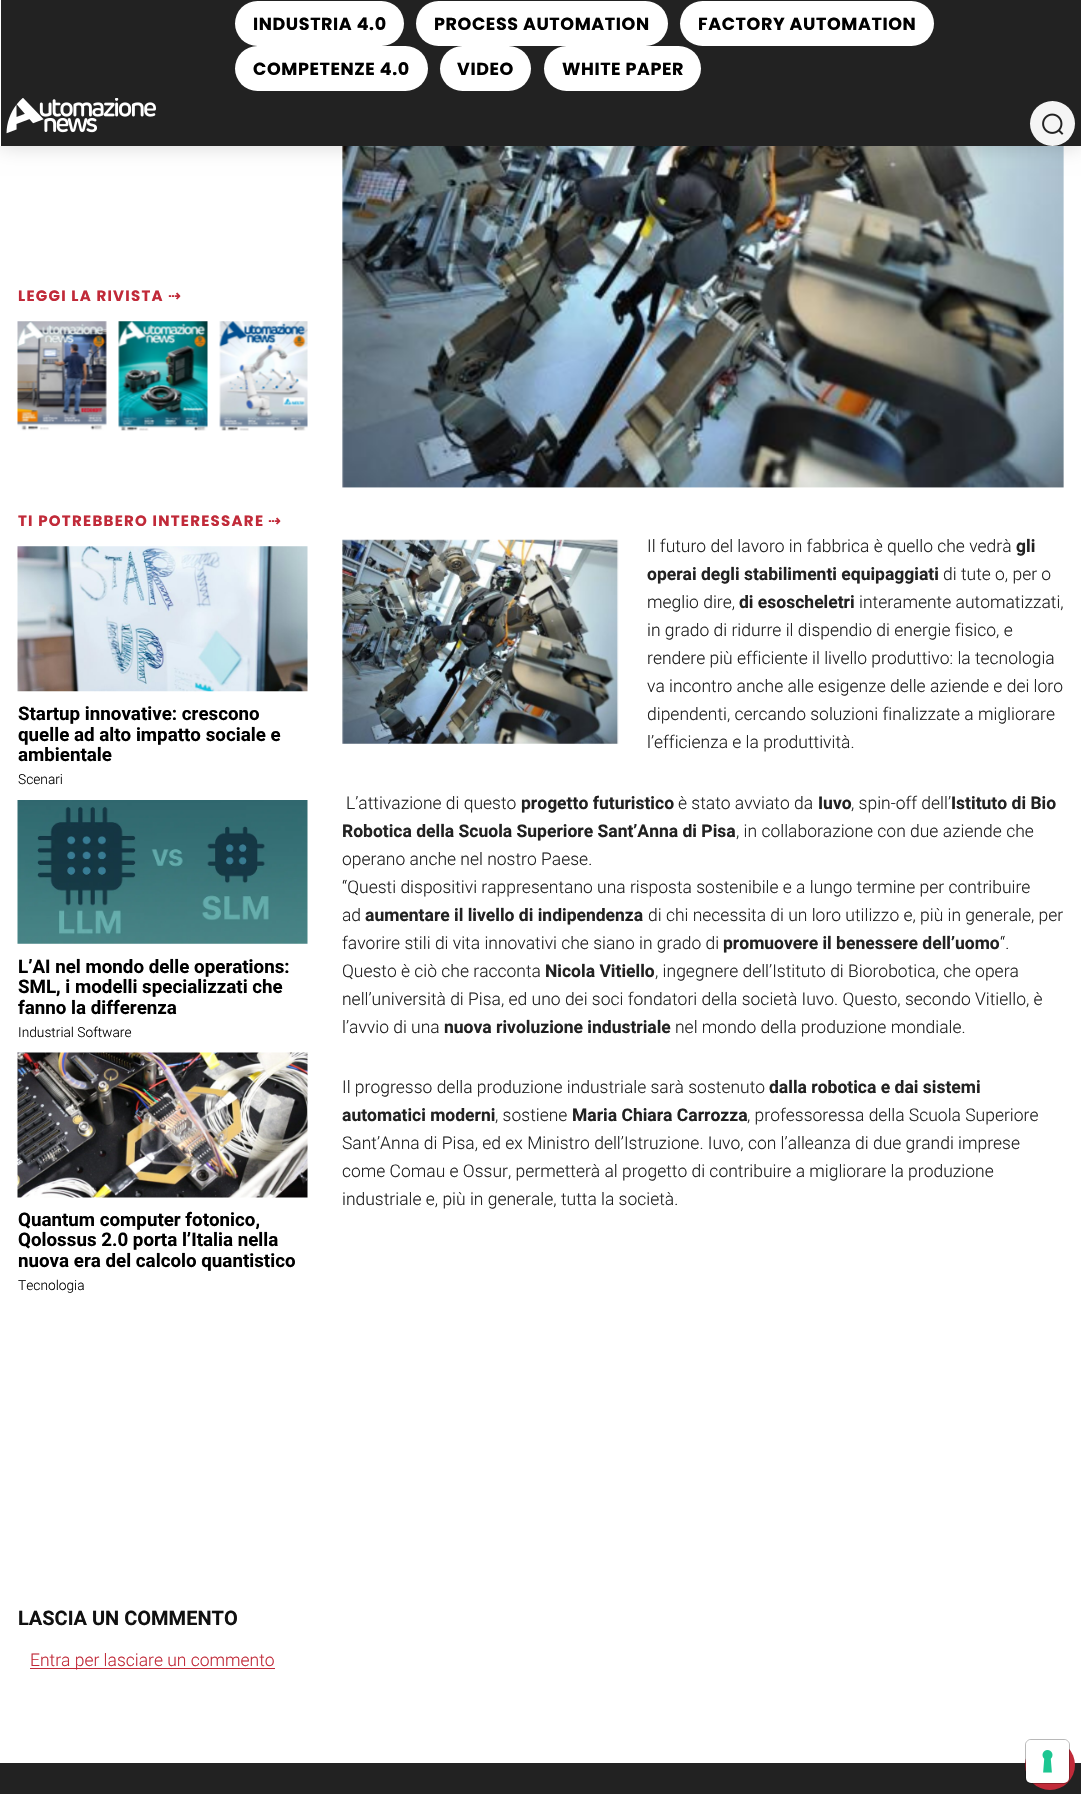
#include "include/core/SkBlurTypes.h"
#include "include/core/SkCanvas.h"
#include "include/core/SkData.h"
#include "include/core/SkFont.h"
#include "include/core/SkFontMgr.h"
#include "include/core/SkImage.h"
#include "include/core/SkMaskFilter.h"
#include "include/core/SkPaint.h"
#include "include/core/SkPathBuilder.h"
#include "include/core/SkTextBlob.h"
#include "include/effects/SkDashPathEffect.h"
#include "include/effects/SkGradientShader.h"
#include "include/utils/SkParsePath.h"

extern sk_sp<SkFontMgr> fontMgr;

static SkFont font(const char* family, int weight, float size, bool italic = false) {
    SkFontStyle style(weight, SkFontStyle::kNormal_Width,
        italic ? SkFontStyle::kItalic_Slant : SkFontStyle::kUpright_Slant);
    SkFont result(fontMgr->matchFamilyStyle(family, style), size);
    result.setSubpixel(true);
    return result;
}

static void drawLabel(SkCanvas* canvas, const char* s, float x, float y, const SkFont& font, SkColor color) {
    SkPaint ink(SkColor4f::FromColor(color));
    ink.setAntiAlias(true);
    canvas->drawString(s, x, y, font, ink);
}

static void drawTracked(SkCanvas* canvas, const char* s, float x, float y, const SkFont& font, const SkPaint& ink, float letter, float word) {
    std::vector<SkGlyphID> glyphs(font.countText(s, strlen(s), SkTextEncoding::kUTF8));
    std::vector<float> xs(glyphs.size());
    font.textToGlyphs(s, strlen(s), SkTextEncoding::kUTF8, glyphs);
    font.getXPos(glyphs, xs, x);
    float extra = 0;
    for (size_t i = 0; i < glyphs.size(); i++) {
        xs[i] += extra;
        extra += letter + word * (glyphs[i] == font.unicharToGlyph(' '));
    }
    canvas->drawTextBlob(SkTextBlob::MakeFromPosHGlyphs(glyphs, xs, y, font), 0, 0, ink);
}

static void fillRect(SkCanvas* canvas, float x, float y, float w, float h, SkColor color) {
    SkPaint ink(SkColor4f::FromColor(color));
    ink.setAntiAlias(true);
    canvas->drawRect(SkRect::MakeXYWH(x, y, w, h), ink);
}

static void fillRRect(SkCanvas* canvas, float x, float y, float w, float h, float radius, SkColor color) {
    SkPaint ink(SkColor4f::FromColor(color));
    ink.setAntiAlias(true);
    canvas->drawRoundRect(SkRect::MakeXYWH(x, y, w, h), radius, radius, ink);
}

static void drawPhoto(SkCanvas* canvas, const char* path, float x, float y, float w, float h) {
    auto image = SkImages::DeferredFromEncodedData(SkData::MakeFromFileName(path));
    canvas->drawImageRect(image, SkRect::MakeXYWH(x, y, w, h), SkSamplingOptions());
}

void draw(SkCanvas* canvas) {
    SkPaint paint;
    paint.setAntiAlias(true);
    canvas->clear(0xFFFFFFFF);
    drawPhoto(canvas, "assets/img9.png", 342, 146, 722, 342);
    paint.setColor(0x29000000);
    paint.setMaskFilter(SkMaskFilter::MakeBlur(kNormal_SkBlurStyle, 10));
    canvas->drawRect(SkRect::MakeXYWH(0, 0, 1081, 146), paint);
    paint.setMaskFilter(nullptr);
    fillRect(canvas, 0, 0, 1, 146, 0xFFFFFFFF);
    fillRect(canvas, 1, 0, 1080, 146, 0xFF222222);
    fillRRect(canvas, 235, 1, 169, 45, 22.5f, 0xFFFFFFFF);
    SkFont font1 = font("Poppins", 700, 17.5f);
    paint.setColor(0xFF000000);
    drawTracked(canvas, "INDUSTRIA 4.0", 253, 30, font1, paint, 0.6f, 0);
    fillRRect(canvas, 416, 1, 252, 45, 22.5f, 0xFFFFFFFF);
    drawTracked(canvas, "PROCESS AUTOMATION", 434, 30, font1, paint, 0.6f, 0);
    fillRRect(canvas, 680, 1, 254, 45, 22.5f, 0xFFFFFFFF);
    drawTracked(canvas, "FACTORY AUTOMATION", 698, 30, font1, paint, 0.6f, 0);
    fillRRect(canvas, 235, 46, 193, 45, 22.5f, 0xFFFFFFFF);
    drawTracked(canvas, "COMPETENZE 4.0", 253, 75, font1, paint, 0.6f, 0);
    fillRRect(canvas, 440, 46, 91, 45, 22.5f, 0xFFFFFFFF);
    drawTracked(canvas, "VIDEO", 457, 75, font1, paint, 0.6f, 0);
    fillRRect(canvas, 544, 46, 157, 45, 22.5f, 0xFFFFFFFF);
    drawTracked(canvas, "WHITE PAPER", 562, 75, font1, paint, 0.6f, 0);
    paint.setColor(0xFFF5F5F5);
    canvas->drawCircle(1052.5f, 123.5f, 22.5f, paint);
    drawPhoto(canvas, "assets/img1.png", 1042, 113, 22, 22);
    drawPhoto(canvas, "assets/img2.png", 6, 98, 150, 36);
    SkFont font2 = font("Poppins", 700, 15);
    paint.setColor(0xFFC12A39);
    drawTracked(canvas, "LEGGI LA RIVISTA", 18, 301, font2, paint, 1.25f, 0);
    SkFont font3 = font("DejaVu Sans", 700, 15);
    drawTracked(canvas, "⇢", 168, 301, font3, paint, 1.25f, 0);
    drawPhoto(canvas, "assets/img3.png", 17, 321, 90, 110);
    drawPhoto(canvas, "assets/img4.png", 118, 321, 90, 110);
    drawPhoto(canvas, "assets/img5.png", 219, 321, 89, 110);
    drawTracked(canvas, "TI POTREBBERO INTERESSARE", 18, 526, font2, paint, 1.25f, 0);
    drawTracked(canvas, "⇢", 268, 526, font3, paint, 1.25f, 0);
    drawPhoto(canvas, "assets/img6.png", 17, 546, 291, 146);
    SkFont font4 = font("Roboto", 700, 18.75f);
    drawLabel(canvas, "Startup innovative: crescono", 18, 720, font4, 0xFF000000);
    drawLabel(canvas, "quelle ad alto impatto sociale e", 18, 741, font4, 0xFF000000);
    drawLabel(canvas, "ambientale", 18, 761, font4, 0xFF000000);
    SkFont font5 = font("Roboto", 300, 13.75f);
    drawLabel(canvas, "Scenari", 18, 784, font5, 0xFF000000);
    drawPhoto(canvas, "assets/img7.png", 17, 800, 291, 144);
    drawLabel(canvas, "L’AI nel mondo delle operations:", 18, 973, font4, 0xFF000000);
    drawLabel(canvas, "SML, i modelli specializzati che", 18, 993, font4, 0xFF000000);
    drawLabel(canvas, "fanno la differenza", 18, 1014, font4, 0xFF000000);
    drawLabel(canvas, "Industrial Software", 18, 1037, font5, 0xFF000000);
    drawPhoto(canvas, "assets/img8.png", 17, 1052, 291, 146);
    drawLabel(canvas, "Quantum computer fotonico,", 18, 1226, font4, 0xFF000000);
    drawLabel(canvas, "Qolossus 2.0 porta l’Italia nella", 18, 1246, font4, 0xFF000000);
    drawLabel(canvas, "nuova era del calcolo quantistico", 18, 1267, font4, 0xFF000000);
    drawLabel(canvas, "Tecnologia", 18, 1290, font5, 0xFF000000);
    drawPhoto(canvas, "assets/img10.png", 342, 539, 277, 205);
    SkFont font6 = font("Roboto", 300, 17.5f);
    drawLabel(canvas, "Il futuro del lavoro in fabbrica è quello che vedrà", 647, 552, font6, 0xFF222222);
    SkFont font7 = font("Roboto", 700, 17.5f);
    drawLabel(canvas, "gli", 1016, 552, font7, 0xFF222222);
    drawLabel(canvas, "operai degli stabilimenti equipaggiati", 647, 580, font7, 0xFF222222);
    drawLabel(canvas, "di tute o, per o", 943, 580, font6, 0xFF222222);
    drawLabel(canvas, "meglio dire,", 647, 608, font6, 0xFF222222);
    drawLabel(canvas, "di esoscheletri", 739, 608, font7, 0xFF222222);
    drawLabel(canvas, "interamente automatizzati,", 859, 608, font6, 0xFF222222);
    drawLabel(canvas, "in grado di ridurre il dispendio di energie fisico, e", 647, 636, font6, 0xFF222222);
    drawLabel(canvas, "rendere più efficiente il livello produttivo: la tecnologia", 647, 664, font6, 0xFF222222);
    drawLabel(canvas, "va incontro anche alle esigenze delle aziende e dei loro", 647, 692, font6, 0xFF222222);
    drawLabel(canvas, "dipendenti, cercando soluzioni finalizzate a migliorare", 647, 720, font6, 0xFF222222);
    drawLabel(canvas, "l’efficienza e la produttività.", 647, 748, font6, 0xFF222222);
    drawLabel(canvas, "L’attivazione di questo", 346, 809, font6, 0xFF222222);
    drawLabel(canvas, "progetto futuristico", 521, 809, font7, 0xFF222222);
    drawLabel(canvas, "è stato avviato da", 678, 809, font6, 0xFF222222);
    drawLabel(canvas, "Iuvo", 818, 809, font7, 0xFF222222);
    drawLabel(canvas, ", spin-off dell’", 851, 809, font6, 0xFF222222);
    drawLabel(canvas, "Istituto di Bio", 951, 809, font7, 0xFF222222);
    drawLabel(canvas, "Robotica della Scuola Superiore Sant’Anna di Pisa", 342, 837, font7, 0xFF222222);
    drawLabel(canvas, ", in collaborazione con due aziende che", 736, 837, font6, 0xFF222222);
    drawLabel(canvas, "operano anche nel nostro Paese.", 342, 865, font6, 0xFF222222);
    drawLabel(canvas, "“Questi dispositivi rappresentano una risposta sostenibile e a lungo termine per contribuire", 342, 893, font6, 0xFF222222);
    drawLabel(canvas, "ad", 342, 921, font6, 0xFF222222);
    drawLabel(canvas, "aumentare il livello di indipendenza", 365, 921, font7, 0xFF222222);
    drawLabel(canvas, "di chi necessita di un loro utilizzo e, più in generale, per", 648, 921, font6, 0xFF222222);
    drawLabel(canvas, "favorire stili di vita innovativi che siano in grado di", 342, 949, font6, 0xFF222222);
    drawLabel(canvas, "promuovere il benessere dell’uomo", 723, 949, font7, 0xFF222222);
    drawLabel(canvas, "“.", 1000, 949, font6, 0xFF222222);
    drawLabel(canvas, "Questo è ciò che racconta", 342, 977, font6, 0xFF222222);
    drawLabel(canvas, "Nicola Vitiello", 545, 977, font7, 0xFF222222);
    drawLabel(canvas, ", ingegnere dell’Istituto di Biorobotica, che opera", 655, 977, font6, 0xFF222222);
    drawLabel(canvas, "nell’università di Pisa, ed uno dei soci fondatori della società Iuvo. Questo, secondo Vitiello, è", 342, 1005, font6, 0xFF222222);
    drawLabel(canvas, "l’avvio di una", 342, 1033, font6, 0xFF222222);
    drawLabel(canvas, "nuova rivoluzione industriale", 444, 1033, font7, 0xFF222222);
    drawLabel(canvas, "nel mondo della produzione mondiale.", 675, 1033, font6, 0xFF222222);
    drawLabel(canvas, "Il progresso della produzione industriale sarà sostenuto", 342, 1093, font6, 0xFF222222);
    drawLabel(canvas, "dalla robotica e dai sistemi", 769, 1093, font7, 0xFF222222);
    drawLabel(canvas, "automatici moderni", 342, 1121, font7, 0xFF222222);
    drawLabel(canvas, ", sostiene", 495, 1121, font6, 0xFF222222);
    drawLabel(canvas, "Maria Chiara Carrozza", 572, 1121, font7, 0xFF222222);
    drawLabel(canvas, ", professoressa della Scuola Superiore", 747, 1121, font6, 0xFF222222);
    drawLabel(canvas, "Sant’Anna di Pisa, ed ex Ministro dell’Istruzione. Iuvo, con l’alleanza di due grandi imprese", 342, 1149, font6, 0xFF222222);
    drawLabel(canvas, "come Comau e Ossur, permetterà al progetto di contribuire a migliorare la produzione", 342, 1177, font6, 0xFF222222);
    drawLabel(canvas, "industriale e, più in generale, tutta la società.", 342, 1205, font6, 0xFF222222);
    SkFont font8 = font("Roboto", 700, 20);
    drawLabel(canvas, "LASCIA UN COMMENTO", 18, 1625, font8, 0xFF111111);
    fillRect(canvas, 30, 1668, 245, 1, 0xFFC12A39);
    drawLabel(canvas, "Entra per lasciare un commento", 30, 1666, font6, 0xFFC12A39);
    fillRect(canvas, 0, 1763, 1081, 31, 0xFF222222);
    canvas->drawCircle(1050, 1765, 25, paint);
    paint.setStroke(true);
    paint.setStrokeWidth(1);
    paint.setColor(0x26000000);
    canvas->drawRoundRect(SkRect::MakeXYWH(1025.5f, 1739.5f, 44, 44), 5.5f, 5.5f, paint);
    canvas->drawRoundRect(SkRect::MakeXYWH(1025.5f, 1739.5f, 44, 44), 5.5f, 5.5f, paint);
    fillRRect(canvas, 1026, 1740, 43, 43, 5, 0xFFFFFFFF);
    drawPhoto(canvas, "assets/img11.png", 1042, 1750, 11, 23);
}
